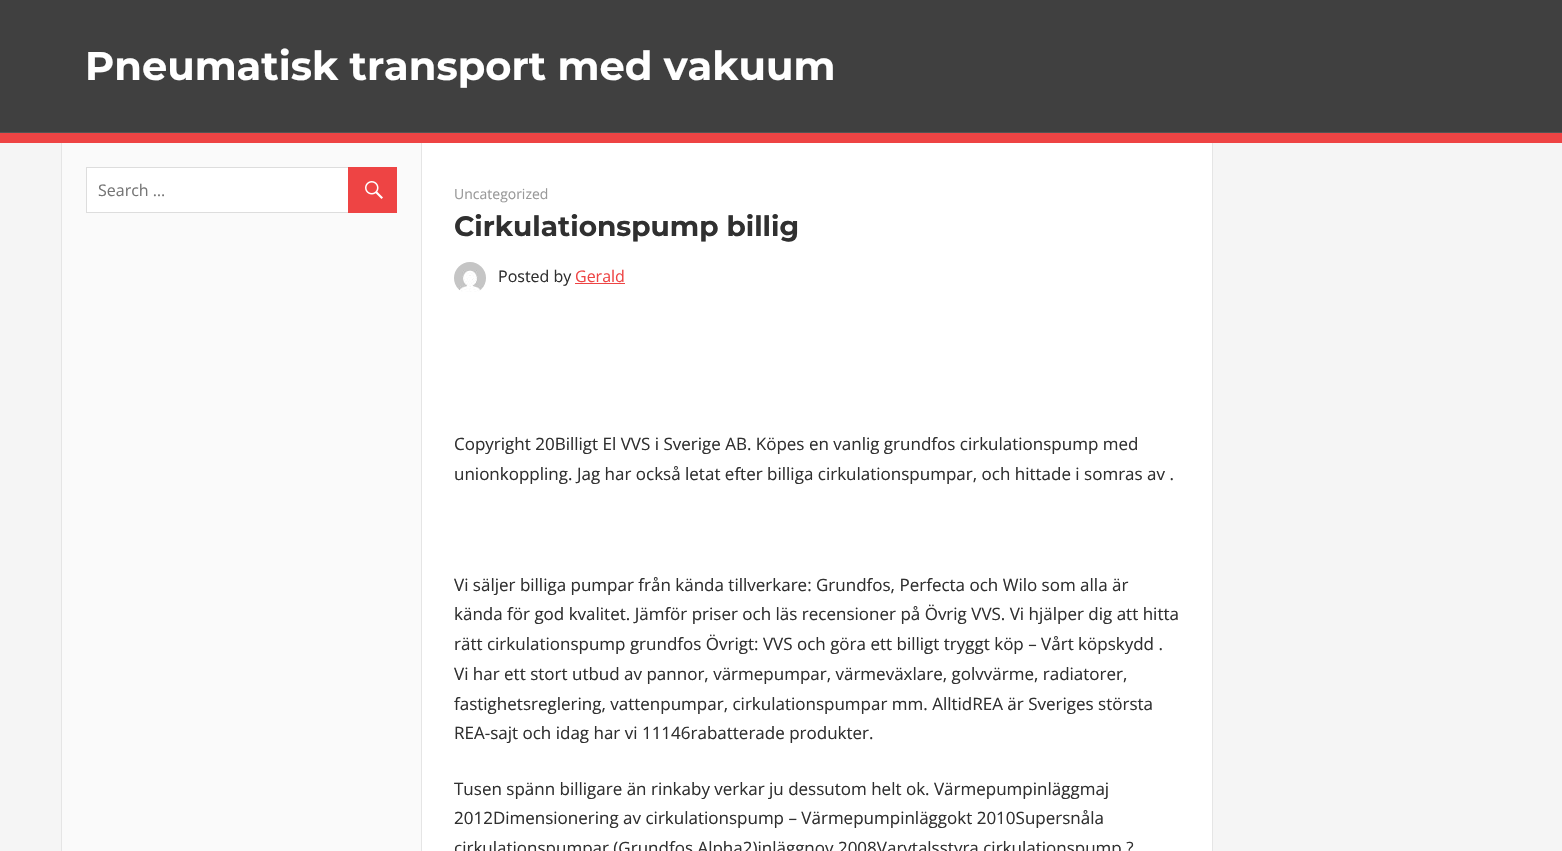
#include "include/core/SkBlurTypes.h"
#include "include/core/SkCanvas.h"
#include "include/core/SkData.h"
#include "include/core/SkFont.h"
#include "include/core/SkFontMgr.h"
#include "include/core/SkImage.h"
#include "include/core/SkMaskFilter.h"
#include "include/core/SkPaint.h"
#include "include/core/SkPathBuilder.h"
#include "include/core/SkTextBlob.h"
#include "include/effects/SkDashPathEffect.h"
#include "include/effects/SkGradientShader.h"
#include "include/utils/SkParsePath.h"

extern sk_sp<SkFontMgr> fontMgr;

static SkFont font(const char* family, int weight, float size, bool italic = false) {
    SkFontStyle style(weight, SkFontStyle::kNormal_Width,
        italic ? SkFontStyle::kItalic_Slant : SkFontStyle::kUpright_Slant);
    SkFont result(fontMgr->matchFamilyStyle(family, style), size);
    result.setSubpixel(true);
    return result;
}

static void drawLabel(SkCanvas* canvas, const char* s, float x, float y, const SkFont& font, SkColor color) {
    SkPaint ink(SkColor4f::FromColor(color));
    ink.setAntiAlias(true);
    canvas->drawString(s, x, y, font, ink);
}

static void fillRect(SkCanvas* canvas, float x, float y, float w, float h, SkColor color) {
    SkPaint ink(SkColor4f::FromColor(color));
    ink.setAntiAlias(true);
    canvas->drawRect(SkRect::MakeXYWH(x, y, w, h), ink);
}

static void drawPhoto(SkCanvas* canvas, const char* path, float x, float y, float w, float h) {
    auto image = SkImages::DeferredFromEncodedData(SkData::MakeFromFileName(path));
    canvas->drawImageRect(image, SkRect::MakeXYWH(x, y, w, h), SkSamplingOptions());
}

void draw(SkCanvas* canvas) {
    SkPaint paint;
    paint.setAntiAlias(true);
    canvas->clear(0xFFF5F5F5);
    fillRect(canvas, 0, 0, 1562, 132, 0xFF404040);
    fillRect(canvas, 0, 133, 1562, 10, 0xFFEE4444);
    SkFont font1 = font("Montserrat", 700, 40);
    drawLabel(canvas, "Pneumatisk transport med vakuum", 85, 80, font1, 0xFFFFFFFF);
    fillRect(canvas, 0, 132, 1562, 1, 0xFF535353);
    fillRect(canvas, 62, 143, 359, 708, 0xFFFAFAFA);
    fillRect(canvas, 61, 143, 1, 708, 0xFFE5E5E5);
    fillRect(canvas, 87, 168, 261, 44, 0xFFFFFFFF);
    paint.setStroke(true);
    paint.setStrokeWidth(1);
    paint.setColor(0xFFDDDDDD);
    canvas->drawRect(SkRect::MakeXYWH(86.5f, 167.5f, 310, 45), paint);
    SkFont font2 = font("Open Sans", 400, 16);
    drawLabel(canvas, "Search …", 98, 196, font2, 0xFF757575);
    fillRect(canvas, 348, 167, 49, 46, 0xFFEE4444);
    drawPhoto(canvas, "assets/img1.png", 365, 181, 18, 18);
    fillRect(canvas, 422, 143, 790, 708, 0xFFFFFFFF);
    fillRect(canvas, 1212, 143, 1, 708, 0xFFE5E5E5);
    fillRect(canvas, 421, 143, 1, 708, 0xFFE5E5E5);
    SkFont font3 = font("Open Sans", 400, 14);
    drawLabel(canvas, "Uncategorized", 454, 199, font3, 0xFF999999);
    SkFont font4 = font("Montserrat", 700, 28);
    drawLabel(canvas, "Cirkulationspump billig", 454, 236, font4, 0xFF303030);
    drawPhoto(canvas, "assets/img2.png", 454, 262, 32, 30);
    drawLabel(canvas, "Posted by", 498, 282, font2, 0xFF303030);
    drawLabel(canvas, "Gerald", 575, 282, font2, 0xFFEE4444);
    fillRect(canvas, 575, 283, 50, 1, 0xFFEE4444);
    SkFont font5 = font("Open Sans", 400, 17);
    drawLabel(canvas, "Copyright 20Billigt El VVS i Sverige AB. Köpes en vanlig grundfos cirkulationspump med", 454, 450, font5, 0xFF303030);
    drawLabel(canvas, "unionkoppling. Jag har också letat efter billiga cirkulationspumpar, och hittade i somras av .", 454, 480, font5, 0xFF303030);
    drawLabel(canvas, "Vi säljer billiga pumpar från kända tillverkare: Grundfos, Perfecta och Wilo som alla är", 454, 591, font5, 0xFF303030);
    drawLabel(canvas, "kända för god kvalitet. Jämför priser och läs recensioner på Övrig VVS. Vi hjälper dig att hitta", 454, 620, font5, 0xFF303030);
    drawLabel(canvas, "rätt cirkulationspump grundfos Övrigt: VVS och göra ett billigt tryggt köp – Vårt köpskydd .", 454, 650, font5, 0xFF303030);
    drawLabel(canvas, "Vi har ett stort utbud av pannor, värmepumpar, värmeväxlare, golvvärme, radiatorer,", 454, 680, font5, 0xFF303030);
    drawLabel(canvas, "fastighetsreglering, vattenpumpar, cirkulationspumpar mm. AlltidREA är Sveriges största", 454, 710, font5, 0xFF303030);
    drawLabel(canvas, "REA-sajt och idag har vi 11146rabatterade produkter.", 454, 739, font5, 0xFF303030);
    drawLabel(canvas, "Tusen spänn billigare än rinkaby verkar ju dessutom helt ok. Värmepumpinläggmaj", 454, 795, font5, 0xFF303030);
    drawLabel(canvas, "2012Dimensionering av cirkulationspump – Värmepumpinläggokt 2010Supersnåla", 454, 824, font5, 0xFF303030);
    drawLabel(canvas, "cirkulationspumpar (Grundfos Alpha2)inläggnov 2008Varvtalsstyra cirkulationspump ?", 454, 854, font5, 0xFF303030);
}
